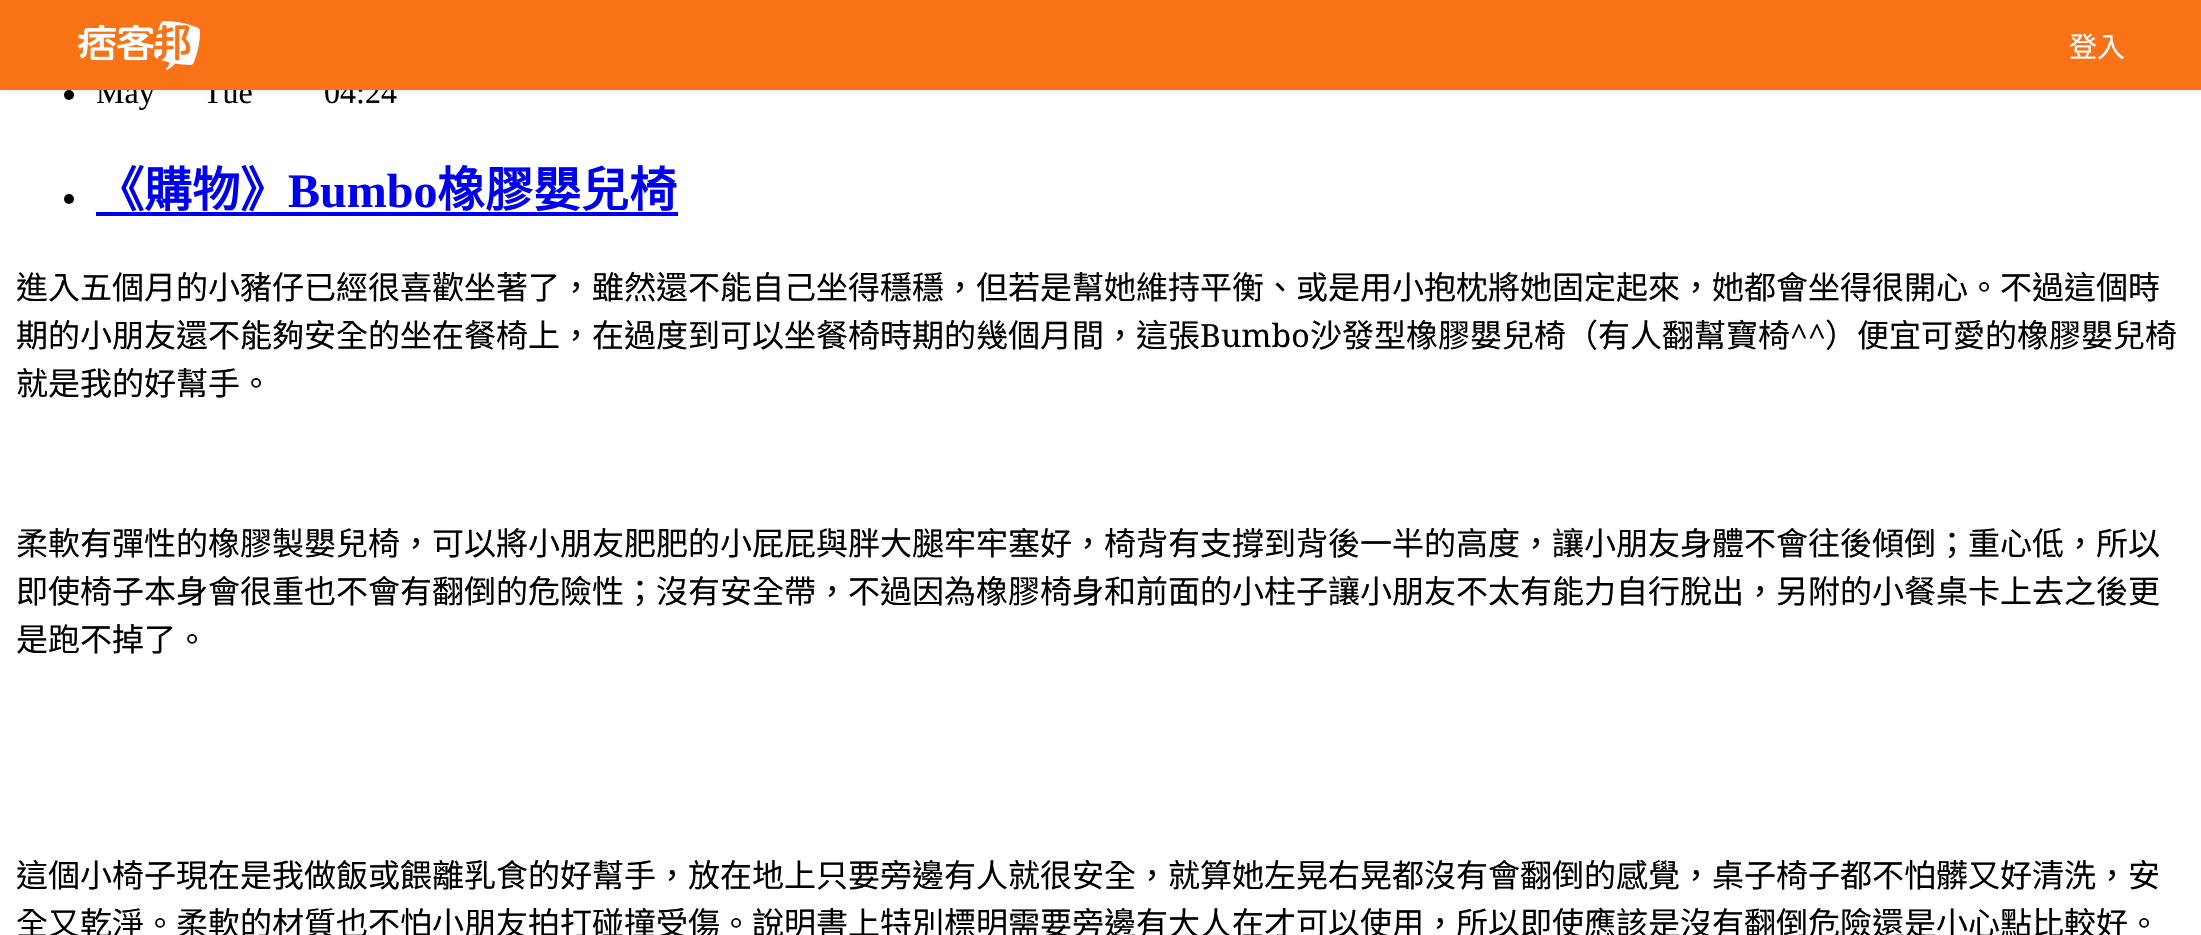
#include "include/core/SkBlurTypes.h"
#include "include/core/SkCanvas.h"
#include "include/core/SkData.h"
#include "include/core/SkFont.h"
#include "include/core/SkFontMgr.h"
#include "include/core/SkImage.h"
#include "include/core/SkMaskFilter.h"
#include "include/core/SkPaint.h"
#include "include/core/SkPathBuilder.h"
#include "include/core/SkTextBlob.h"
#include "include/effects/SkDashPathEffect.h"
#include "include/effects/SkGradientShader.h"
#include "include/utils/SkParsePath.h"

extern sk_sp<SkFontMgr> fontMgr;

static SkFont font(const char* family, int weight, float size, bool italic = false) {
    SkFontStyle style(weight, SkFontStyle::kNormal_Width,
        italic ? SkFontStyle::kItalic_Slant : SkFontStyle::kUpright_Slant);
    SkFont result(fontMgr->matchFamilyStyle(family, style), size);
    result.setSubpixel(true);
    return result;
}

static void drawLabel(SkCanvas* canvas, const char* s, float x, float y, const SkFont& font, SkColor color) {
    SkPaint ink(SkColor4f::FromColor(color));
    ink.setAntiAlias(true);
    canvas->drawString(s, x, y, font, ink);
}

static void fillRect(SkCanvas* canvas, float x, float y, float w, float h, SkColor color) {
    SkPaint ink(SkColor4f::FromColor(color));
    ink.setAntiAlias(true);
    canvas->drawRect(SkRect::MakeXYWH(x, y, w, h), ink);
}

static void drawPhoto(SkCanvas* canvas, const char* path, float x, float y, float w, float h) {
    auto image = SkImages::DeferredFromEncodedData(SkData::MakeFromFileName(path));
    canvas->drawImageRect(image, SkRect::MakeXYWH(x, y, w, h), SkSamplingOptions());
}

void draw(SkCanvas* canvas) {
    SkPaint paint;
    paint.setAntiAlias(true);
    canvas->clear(0xFFFFFFFF);
    paint.setColor(0xFF000000);
    canvas->drawCircle(69, 95, 5, paint);
    paint.setColor(0x0D000000);
    paint.setMaskFilter(SkMaskFilter::MakeBlur(kNormal_SkBlurStyle, 2));
    canvas->drawRect(SkRect::MakeXYWH(0, 2, 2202, 90), paint);
    paint.setMaskFilter(nullptr);
    SkFont font1 = font("Liberation Serif", 400, 32);
    drawLabel(canvas, "May", 96, 103, font1, 0xFF000000);
    drawLabel(canvas, "Tue", 203, 103, font1, 0xFF000000);
    drawLabel(canvas, "04:24", 324, 103, font1, 0xFF000000);
    fillRect(canvas, 0, 0, 2201, 90, 0xFFF97316);
    drawPhoto(canvas, "assets/img1.png", 78, 20, 123, 50);
    SkFont font2 = font("Noto Sans CJK TC", 400, 28);
    drawLabel(canvas, "登入", 2069, 57, font2, 0xFFFFFFFF);
    paint.setColor(0xFF000000);
    canvas->drawCircle(69, 199, 5, paint);
    SkFont font3 = font("Noto Sans CJK TC", 700, 48);
    drawLabel(canvas, "《購物》", 96, 207, font3, 0xFF0000EE);
    SkFont font4 = font("Liberation Serif", 700, 48);
    drawLabel(canvas, "Bumbo", 288, 207, font4, 0xFF0000EE);
    fillRect(canvas, 96, 212, 582, 4, 0xFF0000EE);
    drawLabel(canvas, "橡膠嬰兒椅", 437, 207, font3, 0xFF0000EE);
    SkFont font5 = font("Noto Sans CJK TC", 400, 32);
    drawLabel(canvas, "進入五個月的小豬仔已經很喜歡坐著了，雖然還不能自己坐得穩穩，但若是幫她維持平衡、或是用小抱枕將她固定起來，她都會坐得很開心。不過這個時", 16, 299, font5, 0xFF000000);
    drawLabel(canvas, "期的小朋友還不能夠安全的坐在餐椅上，在過度到可以坐餐椅時期的幾個月間，這張", 16, 347, font5, 0xFF000000);
    SkFont font6 = font("Noto Serif", 400, 32);
    drawLabel(canvas, "Bumbo", 1200, 347, font6, 0xFF000000);
    drawLabel(canvas, "沙發型橡膠嬰兒椅（有人翻幫寶椅", 1310, 347, font5, 0xFF000000);
    drawLabel(canvas, "^^", 1790, 347, font6, 0xFF000000);
    drawLabel(canvas, "）便宜可愛的橡膠嬰兒椅", 1825, 347, font5, 0xFF000000);
    drawLabel(canvas, "就是我的好幫手。", 16, 395, font5, 0xFF000000);
    drawLabel(canvas, "柔軟有彈性的橡膠製嬰兒椅，可以將小朋友肥肥的小屁屁與胖大腿牢牢塞好，椅背有支撐到背後一半的高度，讓小朋友身體不會往後傾倒；重心低，所以", 16, 555, font5, 0xFF000000);
    drawLabel(canvas, "即使椅子本身會很重也不會有翻倒的危險性；沒有安全帶，不過因為橡膠椅身和前面的小柱子讓小朋友不太有能力自行脫出，另附的小餐桌卡上去之後更", 16, 603, font5, 0xFF000000);
    drawLabel(canvas, "是跑不掉了。", 16, 651, font5, 0xFF000000);
    drawLabel(canvas, "這個小椅子現在是我做飯或餵離乳食的好幫手，放在地上只要旁邊有人就很安全，就算她左晃右晃都沒有會翻倒的感覺，桌子椅子都不怕髒又好清洗，安", 16, 887, font5, 0xFF000000);
    drawLabel(canvas, "全又乾淨。柔軟的材質也不怕小朋友拍打碰撞受傷。說明書上特別標明需要旁邊有大人在才可以使用，所以即使應該是沒有翻倒危險還是小心點比較好。", 16, 935, font5, 0xFF000000);
}
